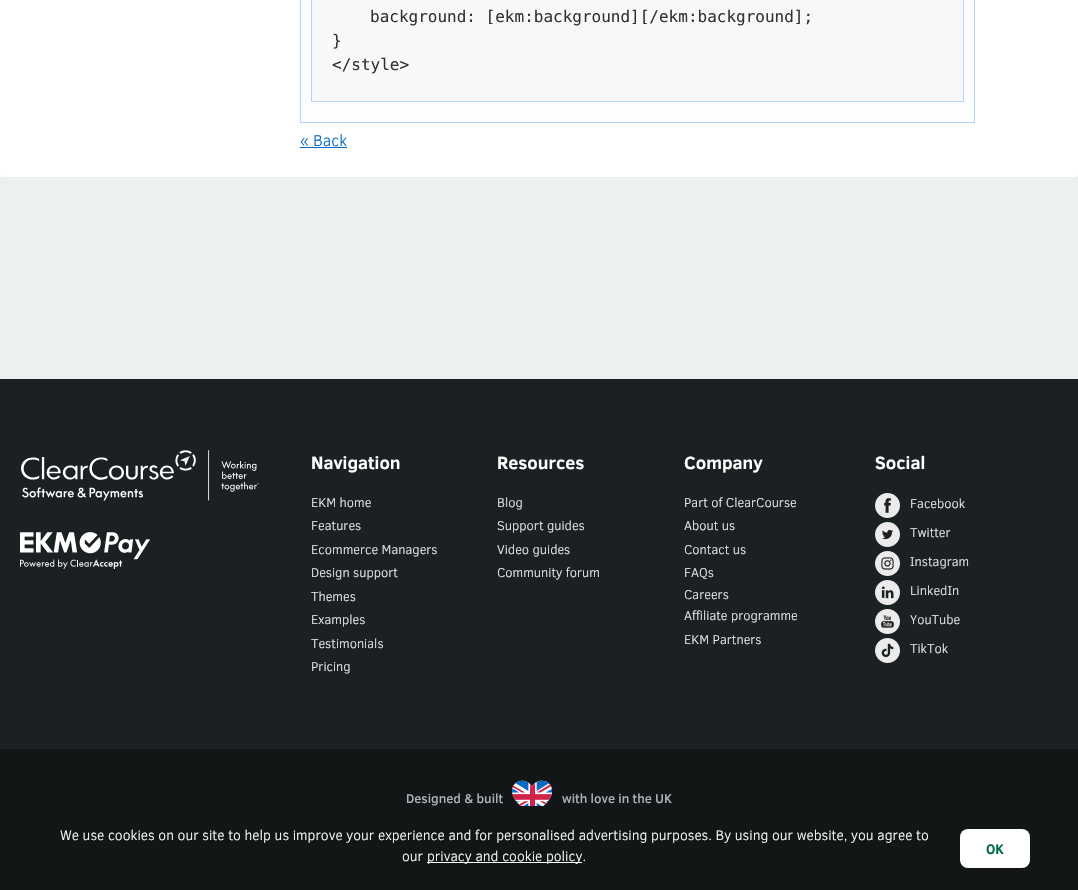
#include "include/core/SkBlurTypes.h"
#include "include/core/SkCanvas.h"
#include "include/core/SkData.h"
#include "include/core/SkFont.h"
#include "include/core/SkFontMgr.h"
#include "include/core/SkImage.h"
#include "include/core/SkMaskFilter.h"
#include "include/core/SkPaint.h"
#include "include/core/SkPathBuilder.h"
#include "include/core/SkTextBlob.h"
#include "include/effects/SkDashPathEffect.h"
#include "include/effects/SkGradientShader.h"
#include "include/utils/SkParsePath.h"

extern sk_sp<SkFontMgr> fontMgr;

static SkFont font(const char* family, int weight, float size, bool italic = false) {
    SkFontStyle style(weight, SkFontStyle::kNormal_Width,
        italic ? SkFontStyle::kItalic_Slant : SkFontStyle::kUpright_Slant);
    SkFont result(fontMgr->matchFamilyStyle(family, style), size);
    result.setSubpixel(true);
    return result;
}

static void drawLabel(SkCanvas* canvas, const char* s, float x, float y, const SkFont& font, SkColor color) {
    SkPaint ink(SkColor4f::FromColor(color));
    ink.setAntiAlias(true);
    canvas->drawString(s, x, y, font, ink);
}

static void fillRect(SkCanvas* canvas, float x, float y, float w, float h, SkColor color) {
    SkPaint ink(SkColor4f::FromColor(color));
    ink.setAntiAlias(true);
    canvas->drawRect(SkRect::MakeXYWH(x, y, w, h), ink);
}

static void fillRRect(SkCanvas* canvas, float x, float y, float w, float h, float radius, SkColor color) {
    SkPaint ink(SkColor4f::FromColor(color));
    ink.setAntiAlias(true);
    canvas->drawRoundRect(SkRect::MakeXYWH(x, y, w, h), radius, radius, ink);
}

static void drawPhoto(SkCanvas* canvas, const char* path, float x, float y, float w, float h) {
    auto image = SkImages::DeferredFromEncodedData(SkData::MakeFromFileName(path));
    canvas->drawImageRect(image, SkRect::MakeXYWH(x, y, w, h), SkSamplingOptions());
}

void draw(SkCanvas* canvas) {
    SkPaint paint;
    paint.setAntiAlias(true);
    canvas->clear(0xFFECF0F1);
    fillRRect(canvas, 0, -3, 1078, 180, 3, 0xFFFFFFFF);
    paint.setColor(0xFFFBFDFF);
    canvas->drawRect(SkRect::MakeXYWH(300.5f, -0.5f, 674, 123), paint);
    paint.setStroke(true);
    paint.setStrokeWidth(1);
    paint.setColor(0xFFB2D4FA);
    canvas->drawRect(SkRect::MakeXYWH(300.5f, -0.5f, 674, 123), paint);
    canvas->drawRect(SkRect::MakeXYWH(311.5f, -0.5f, 652, 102), paint);
    fillRect(canvas, 312, 0, 651, 101, 0xFFF8F8F8);
    SkFont font1 = font("DejaVu Sans Mono", 400, 16);
    drawLabel(canvas, "background: [ekm:background][/ekm:background];", 370, 22, font1, 0xFF333333);
    drawLabel(canvas, "}", 332, 46, font1, 0xFF333333);
    drawLabel(canvas, "</style>", 332, 70, font1, 0xFF333333);
    SkFont font2 = font("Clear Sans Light", 300, 16);
    drawLabel(canvas, "« Back", 300, 146, font2, 0xFF026AC2);
    fillRect(canvas, 300, 147, 47, 1, 0xFF026AC2);
    fillRect(canvas, 0, 379, 1078, 370, 0xFF1B2022);
    drawPhoto(canvas, "assets/img1.png", 21, 450, 238, 51);
    drawPhoto(canvas, "assets/img2.png", 20, 532, 130, 37);
    SkFont font3 = font("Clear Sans", 700, 18);
    drawLabel(canvas, "Navigation", 311, 469, font3, 0xFFFFFFFF);
    SkFont font4 = font("Clear Sans Light", 300, 13);
    drawLabel(canvas, "EKM home", 311, 507, font4, 0xFFEBEBEB);
    drawLabel(canvas, "Features", 311, 530, font4, 0xFFEBEBEB);
    drawLabel(canvas, "Ecommerce Managers", 311, 554, font4, 0xFFEBEBEB);
    drawLabel(canvas, "Design support", 311, 577, font4, 0xFFEBEBEB);
    drawLabel(canvas, "Themes", 311, 601, font4, 0xFFEBEBEB);
    drawLabel(canvas, "Examples", 311, 624, font4, 0xFFEBEBEB);
    drawLabel(canvas, "Testimonials", 311, 648, font4, 0xFFEBEBEB);
    drawLabel(canvas, "Pricing", 311, 671, font4, 0xFFEBEBEB);
    drawLabel(canvas, "Resources", 497, 469, font3, 0xFFFFFFFF);
    drawLabel(canvas, "Blog", 497, 507, font4, 0xFFEBEBEB);
    drawLabel(canvas, "Support guides", 497, 530, font4, 0xFFEBEBEB);
    drawLabel(canvas, "Video guides", 497, 554, font4, 0xFFEBEBEB);
    drawLabel(canvas, "Community forum", 497, 577, font4, 0xFFEBEBEB);
    drawLabel(canvas, "Company", 684, 469, font3, 0xFFFFFFFF);
    drawLabel(canvas, "Part of ClearCourse", 684, 507, font4, 0xFFEBEBEB);
    drawLabel(canvas, "About us", 684, 530, font4, 0xFFEBEBEB);
    drawLabel(canvas, "Contact us", 684, 554, font4, 0xFFEBEBEB);
    drawLabel(canvas, "FAQs", 684, 577, font4, 0xFFEBEBEB);
    drawLabel(canvas, "Careers", 684, 599, font4, 0xFFEBEBEB);
    drawLabel(canvas, "Affiliate programme", 684, 620, font4, 0xFFEBEBEB);
    drawLabel(canvas, "EKM Partners", 684, 644, font4, 0xFFEBEBEB);
    drawLabel(canvas, "Social", 875, 469, font3, 0xFFFFFFFF);
    drawPhoto(canvas, "assets/img3.png", 875, 493, 25, 25);
    drawLabel(canvas, "Facebook", 910, 508, font4, 0xFFEBEBEB);
    drawPhoto(canvas, "assets/img4.png", 875, 522, 25, 25);
    drawLabel(canvas, "Twitter", 910, 537, font4, 0xFFEBEBEB);
    drawPhoto(canvas, "assets/img5.png", 875, 551, 25, 25);
    drawLabel(canvas, "Instagram", 910, 566, font4, 0xFFEBEBEB);
    drawPhoto(canvas, "assets/img6.png", 875, 580, 25, 25);
    drawLabel(canvas, "LinkedIn", 910, 595, font4, 0xFFEBEBEB);
    drawPhoto(canvas, "assets/img7.png", 875, 609, 25, 25);
    drawLabel(canvas, "YouTube", 910, 624, font4, 0xFFEBEBEB);
    drawPhoto(canvas, "assets/img8.png", 875, 638, 25, 25);
    drawLabel(canvas, "TikTok", 910, 653, font4, 0xFFEBEBEB);
    fillRect(canvas, 0, 749, 1078, 141, 0xFF121617);
    SkFont font5 = font("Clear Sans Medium", 500, 13);
    drawLabel(canvas, "Designed & built", 406, 803, font5, 0xFFACB3B8);
    drawPhoto(canvas, "assets/img9.png", 512, 780, 41, 26);
    drawLabel(canvas, "with love in the UK", 562, 803, font5, 0xFFACB3B8);
    SkFont font6 = font("Clear Sans Light", 300, 14);
    drawLabel(canvas, "We use cookies on our site to help us improve your experience and for personalised advertising purposes. By using our website, you agree to", 60, 840, font6, 0xFFFFFFFF);
    drawLabel(canvas, "our", 402, 861, font6, 0xFFFFFFFF);
    fillRect(canvas, 427, 862, 155, 1, 0xFFFFFFFF);
    drawLabel(canvas, "privacy and cookie policy.", 427, 861, font6, 0xFFFFFFFF);
    fillRRect(canvas, 960, 829, 70, 39, 8, 0xFFFFFFFF);
    SkFont font7 = font("Clear Sans", 700, 14);
    drawLabel(canvas, "OK", 986, 854, font7, 0xFF046C4E);
}
